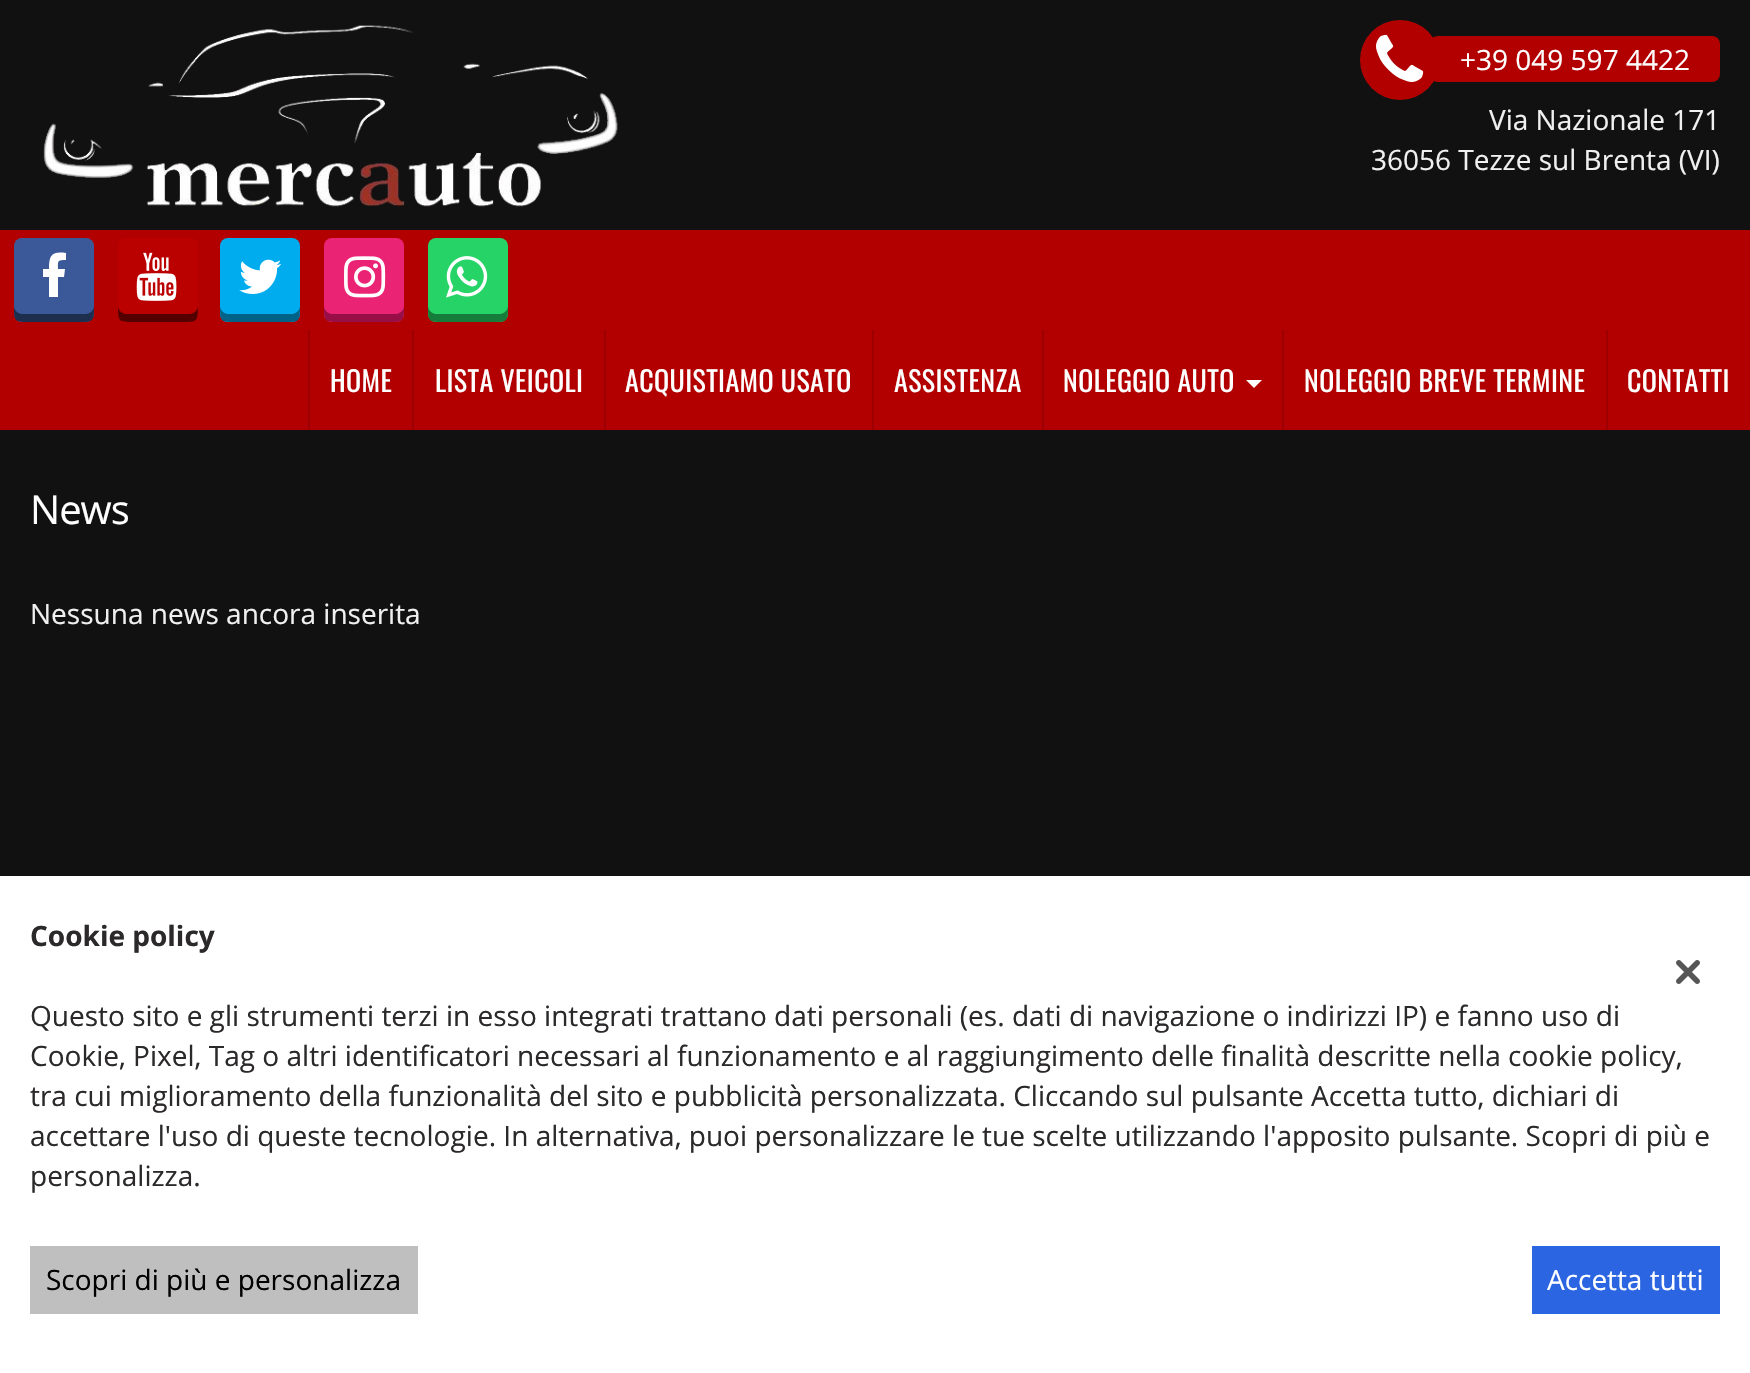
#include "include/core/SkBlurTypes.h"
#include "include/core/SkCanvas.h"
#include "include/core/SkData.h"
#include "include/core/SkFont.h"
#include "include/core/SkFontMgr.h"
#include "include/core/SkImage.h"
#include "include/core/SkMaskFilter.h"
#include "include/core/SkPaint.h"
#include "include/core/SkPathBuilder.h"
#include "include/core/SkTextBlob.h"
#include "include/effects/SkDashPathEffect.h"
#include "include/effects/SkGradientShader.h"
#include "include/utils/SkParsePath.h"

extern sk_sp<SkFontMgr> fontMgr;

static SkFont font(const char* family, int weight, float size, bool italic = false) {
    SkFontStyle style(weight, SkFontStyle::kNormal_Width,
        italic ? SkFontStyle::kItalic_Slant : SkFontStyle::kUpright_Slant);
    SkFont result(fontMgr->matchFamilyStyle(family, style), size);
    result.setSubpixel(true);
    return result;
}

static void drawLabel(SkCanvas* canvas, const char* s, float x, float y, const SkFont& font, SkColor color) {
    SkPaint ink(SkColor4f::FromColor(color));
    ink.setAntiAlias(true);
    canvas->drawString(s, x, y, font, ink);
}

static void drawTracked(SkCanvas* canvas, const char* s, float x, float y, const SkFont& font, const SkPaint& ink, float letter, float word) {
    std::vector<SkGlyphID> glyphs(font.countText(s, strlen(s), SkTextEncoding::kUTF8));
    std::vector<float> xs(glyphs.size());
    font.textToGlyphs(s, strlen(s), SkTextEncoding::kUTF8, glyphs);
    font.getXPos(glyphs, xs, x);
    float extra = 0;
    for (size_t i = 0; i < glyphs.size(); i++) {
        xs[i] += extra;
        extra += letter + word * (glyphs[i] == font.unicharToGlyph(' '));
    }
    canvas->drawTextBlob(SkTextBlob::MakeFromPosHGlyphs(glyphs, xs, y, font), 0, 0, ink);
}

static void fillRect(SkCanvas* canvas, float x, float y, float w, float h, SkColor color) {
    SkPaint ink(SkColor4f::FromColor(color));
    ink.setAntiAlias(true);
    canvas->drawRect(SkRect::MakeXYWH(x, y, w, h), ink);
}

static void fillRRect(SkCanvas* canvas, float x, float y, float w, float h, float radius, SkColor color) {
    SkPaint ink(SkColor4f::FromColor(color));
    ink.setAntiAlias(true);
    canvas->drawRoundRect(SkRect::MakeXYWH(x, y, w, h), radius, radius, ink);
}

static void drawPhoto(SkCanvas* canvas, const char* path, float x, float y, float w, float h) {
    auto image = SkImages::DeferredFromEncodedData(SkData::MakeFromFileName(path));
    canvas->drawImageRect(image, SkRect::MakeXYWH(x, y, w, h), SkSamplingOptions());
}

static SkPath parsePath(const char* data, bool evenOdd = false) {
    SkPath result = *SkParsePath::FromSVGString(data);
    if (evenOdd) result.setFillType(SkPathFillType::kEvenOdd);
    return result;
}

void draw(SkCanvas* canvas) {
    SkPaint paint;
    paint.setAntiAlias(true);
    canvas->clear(0xFF111111);
    drawPhoto(canvas, "assets/img1.png", 43, 25, 575, 182);
    paint.setColor(0xFFB20000);
    canvas->drawCircle(1400, 60, 40, paint);
    drawPhoto(canvas, "assets/img2.png", 1376, 34, 48, 48);
    fillRRect(canvas, 1430, 36, 290, 46, 8, 0xFFB20000);
    SkFont font1 = font("Open Sans", 400, 28);
    drawLabel(canvas, "+39 049 597 4422", 1460, 70, font1, 0xFFFFFFFF);
    drawLabel(canvas, "Via Nazionale 171", 1489, 130, font1, 0xFFF0F0F0);
    drawLabel(canvas, "36056 Tezze sul Brenta (VI)", 1371, 170, font1, 0xFFF0F0F0);
    fillRect(canvas, 0, 230, 1750, 200, 0xFFB20000);
    fillRRect(canvas, 14, 238, 80, 84, 8, 0xFF3B5998);
    paint.setColor(0xFF1E2E4F);
    canvas->drawPath(parsePath("M14 306C14 323 15 322 33 322H75C93 322 94 323 94 306C94 310 90 314 86 314H22C18 314 14 310 14 306Z"), paint);
    paint.setColor(0xFFFFFFFF);
    canvas->drawPath(parsePath("M66 253V260C57 260 58 261 58 269H65L64 277H58V297H49V277H43V269H49C49 256 51 251 66 253Z"), paint);
    fillRRect(canvas, 118, 238, 80, 84, 8, 0xFFBB0000);
    paint.setColor(0xFF550000);
    canvas->drawPath(parsePath("M118 306C118 323 119 322 137 322H179C197 322 198 323 198 306C198 310 194 314 190 314H126C122 314 118 310 118 306Z"), paint);
    drawPhoto(canvas, "assets/img3.png", 136, 252, 41, 49);
    fillRRect(canvas, 220, 238, 80, 84, 8, 0xFF00ACED);
    paint.setColor(0xFF006287);
    canvas->drawPath(parsePath("M220 306C220 323 221 322 239 322H281C299 322 300 323 300 306C300 310 296 314 292 314H228C224 314 220 310 220 306Z"), paint);
    drawPhoto(canvas, "assets/img4.png", 239, 259, 43, 35);
    fillRRect(canvas, 324, 238, 80, 84, 8, 0xFFEA2374);
    paint.setColor(0xFF980F47);
    canvas->drawPath(parsePath("M324 306C324 323 325 322 343 322H385C403 322 404 323 404 306C404 310 400 314 396 314H332C328 314 324 310 324 306Z"), paint);
    drawPhoto(canvas, "assets/img5.png", 344, 256, 42, 42);
    fillRRect(canvas, 428, 238, 80, 84, 8, 0xFF25D366);
    paint.setColor(0xFF167C3C);
    canvas->drawPath(parsePath("M428 306C428 323 429 322 447 322H489C507 322 508 323 508 306C508 310 504 314 500 314H436C432 314 428 310 428 306Z"), paint);
    drawPhoto(canvas, "assets/img6.png", 446, 256, 42, 42);
    fillRect(canvas, 308, 330, 2, 100, 0xFF9E0000);
    SkFont font2 = font("Oswald", 400, 28);
    paint.setColor(0xFFFFFFFF);
    drawTracked(canvas, "HOME", 330, 392, font2, paint, 0.4f, 0);
    fillRect(canvas, 412, 330, 2, 100, 0xFF9E0000);
    drawTracked(canvas, "LISTA VEICOLI", 435, 392, font2, paint, 0.4f, 0);
    fillRect(canvas, 604, 330, 2, 100, 0xFF9E0000);
    drawTracked(canvas, "ACQUISTIAMO USATO", 625, 392, font2, paint, 0.4f, 0);
    fillRect(canvas, 872, 330, 2, 100, 0xFF9E0000);
    drawTracked(canvas, "ASSISTENZA", 894, 392, font2, paint, 0.4f, 0);
    fillRect(canvas, 1042, 330, 2, 100, 0xFF9E0000);
    drawTracked(canvas, "NOLEGGIO AUTO", 1063, 392, font2, paint, 0.4f, 0);
    canvas->drawPath(parsePath("M1246 380H1262L1254 388Z"), paint);
    fillRect(canvas, 1282, 330, 2, 100, 0xFF9E0000);
    drawTracked(canvas, "NOLEGGIO BREVE TERMINE", 1304, 392, font2, paint, 0.4f, 0);
    fillRect(canvas, 1606, 330, 2, 100, 0xFF9E0000);
    drawTracked(canvas, "CONTATTI", 1627, 392, font2, paint, 0.4f, 0);
    SkFont font3 = font("Open Sans", 400, 40);
    drawTracked(canvas, "News", 30, 524, font3, paint, -1, 0);
    drawLabel(canvas, "Nessuna news ancora inserita", 30, 624, font1, 0xFFF0F0F0);
    fillRect(canvas, 0, 876, 1750, 497, 0xFFFFFFFF);
    SkFont font4 = font("Open Sans", 700, 28);
    drawLabel(canvas, "Cookie policy", 30, 946, font4, 0xFF2B2929);
    drawLabel(canvas, "Questo sito e gli strumenti terzi in esso integrati trattano dati personali (es. dati di navigazione o indirizzi IP) e fanno uso di", 30, 1026, font1, 0xFF2B2929);
    drawLabel(canvas, "Cookie, Pixel, Tag o altri identificatori necessari al funzionamento e al raggiungimento delle finalità descritte nella cookie policy,", 30, 1066, font1, 0xFF2B2929);
    drawLabel(canvas, "tra cui miglioramento della funzionalità del sito e pubblicità personalizzata. Cliccando sul pulsante Accetta tutto, dichiari di", 30, 1106, font1, 0xFF2B2929);
    drawLabel(canvas, "accettare l'uso di queste tecnologie. In alternativa, puoi personalizzare le tue scelte utilizzando l'apposito pulsante. Scopri di più e", 30, 1146, font1, 0xFF2B2929);
    drawLabel(canvas, "personalizza.", 30, 1186, font1, 0xFF2B2929);
    fillRect(canvas, 30, 1246, 388, 68, 0xFFBFBFBF);
    drawLabel(canvas, "Scopri di più e personalizza", 46, 1290, font1, 0xFF000000);
    fillRect(canvas, 1532, 1246, 188, 68, 0xFF2C65E1);
    drawLabel(canvas, "Accetta tutti", 1547, 1290, font1, 0xFFFFFFFF);
    drawPhoto(canvas, "assets/img7.png", 1676, 960, 24, 24);
}
